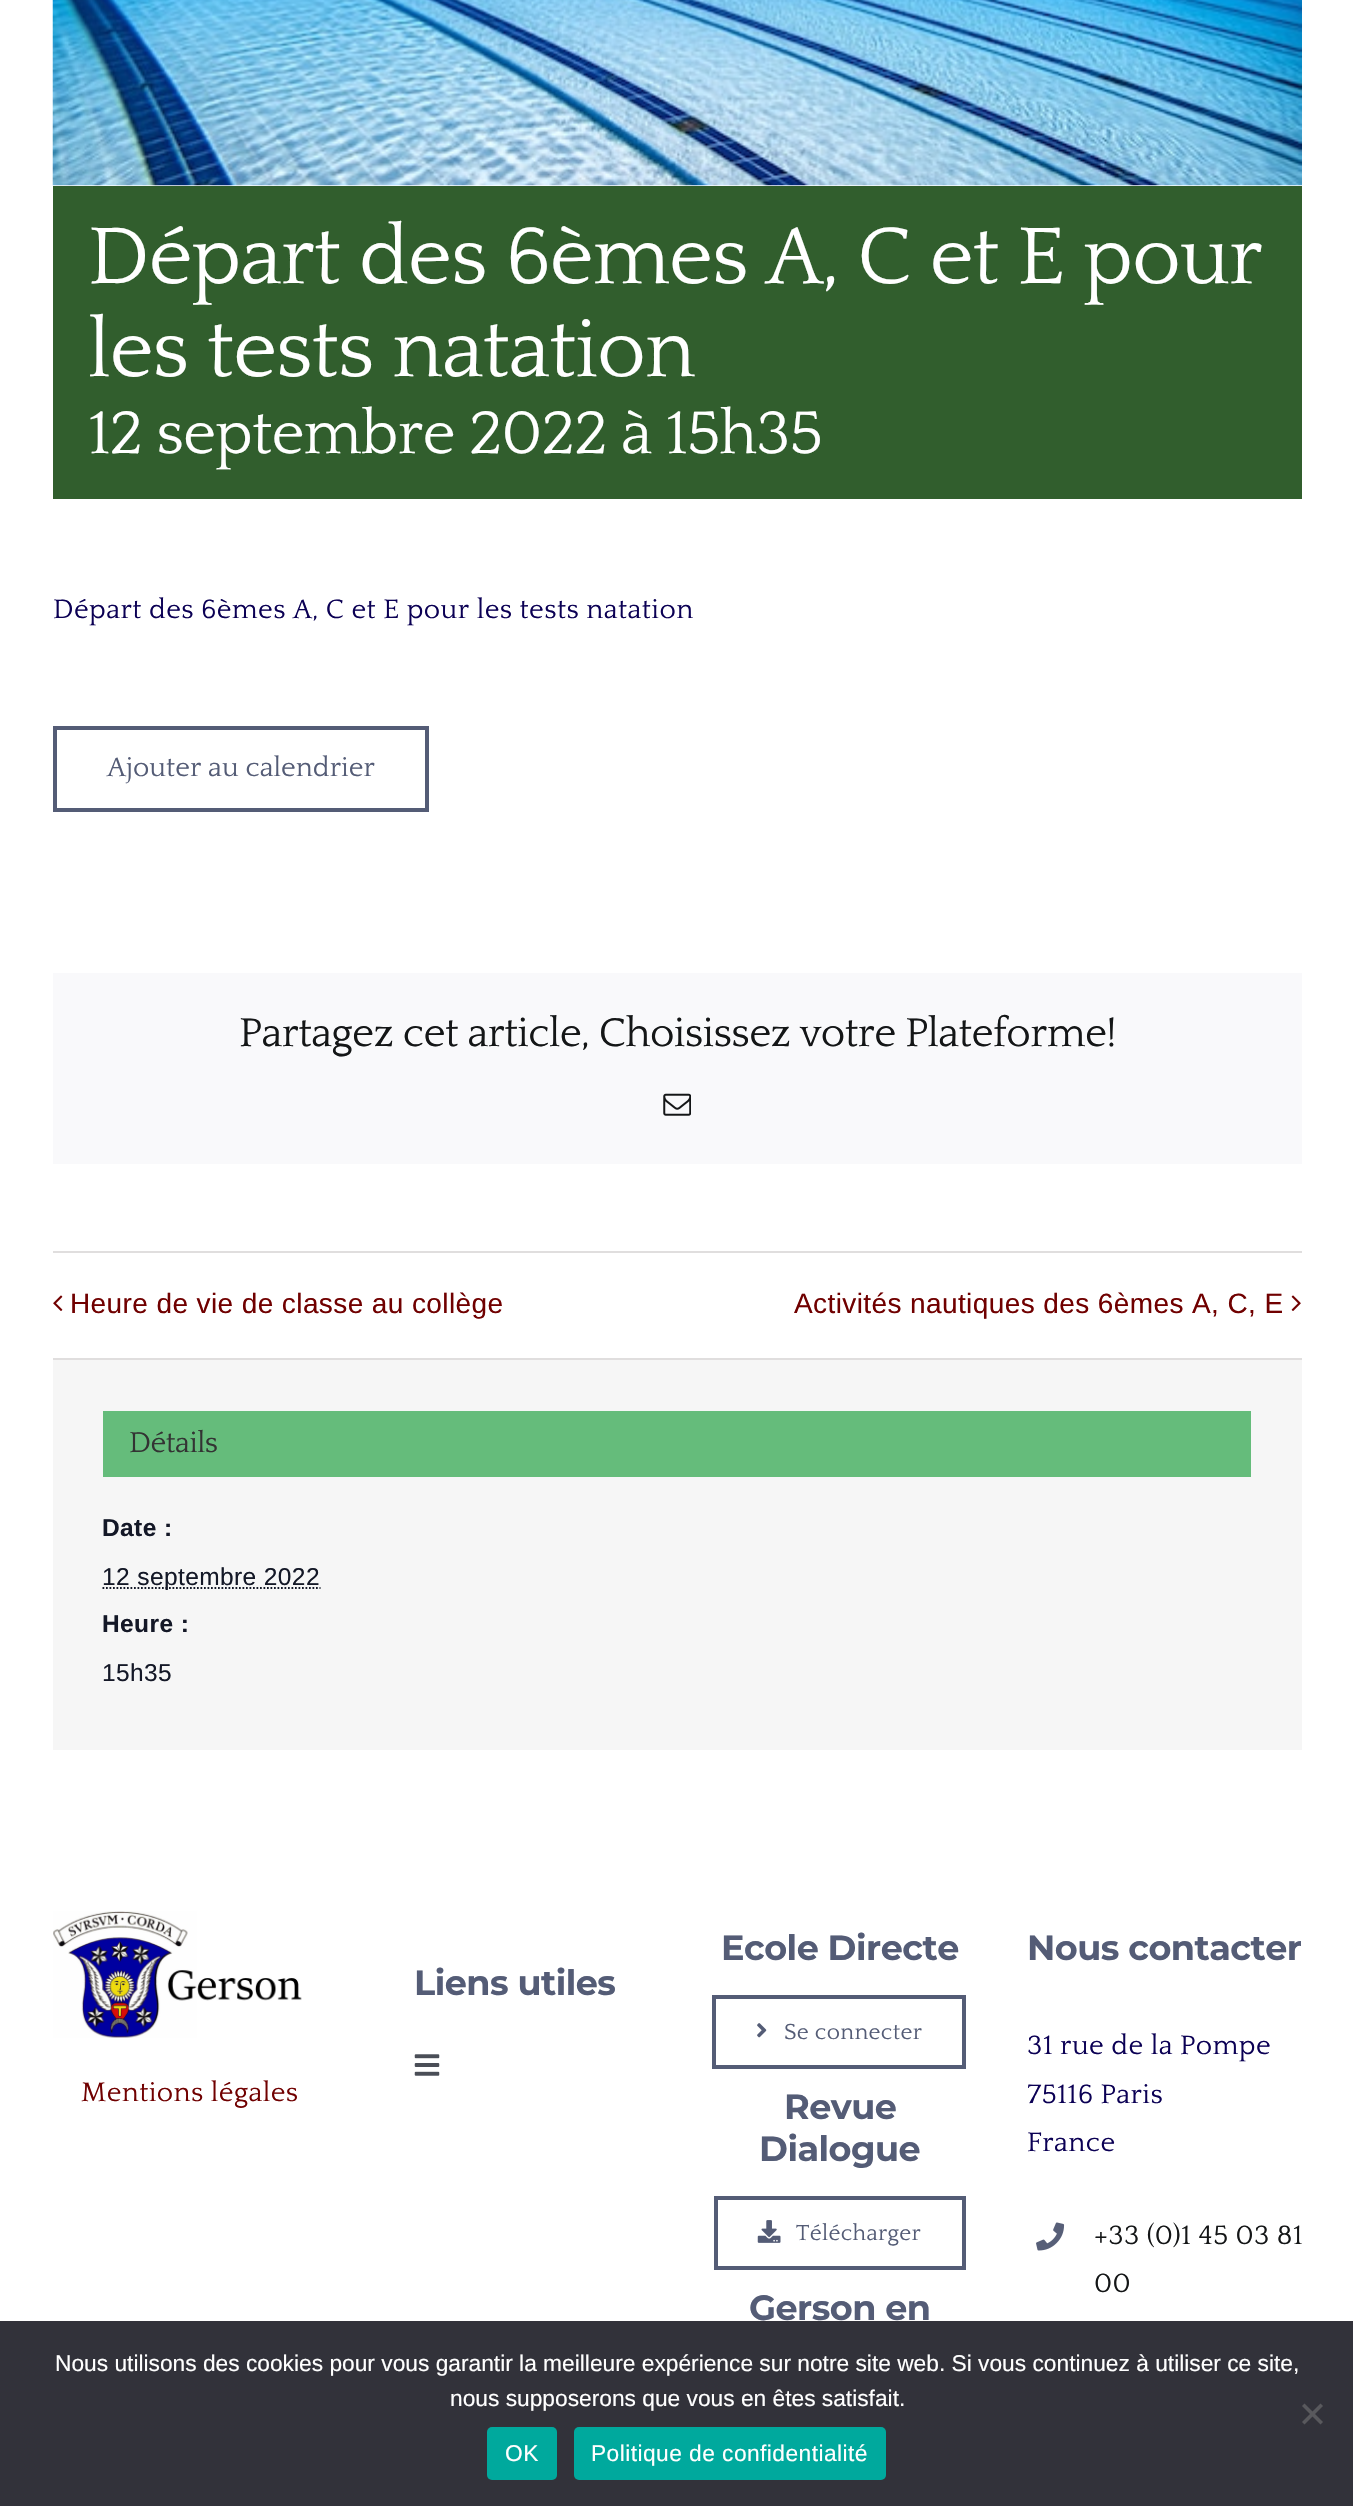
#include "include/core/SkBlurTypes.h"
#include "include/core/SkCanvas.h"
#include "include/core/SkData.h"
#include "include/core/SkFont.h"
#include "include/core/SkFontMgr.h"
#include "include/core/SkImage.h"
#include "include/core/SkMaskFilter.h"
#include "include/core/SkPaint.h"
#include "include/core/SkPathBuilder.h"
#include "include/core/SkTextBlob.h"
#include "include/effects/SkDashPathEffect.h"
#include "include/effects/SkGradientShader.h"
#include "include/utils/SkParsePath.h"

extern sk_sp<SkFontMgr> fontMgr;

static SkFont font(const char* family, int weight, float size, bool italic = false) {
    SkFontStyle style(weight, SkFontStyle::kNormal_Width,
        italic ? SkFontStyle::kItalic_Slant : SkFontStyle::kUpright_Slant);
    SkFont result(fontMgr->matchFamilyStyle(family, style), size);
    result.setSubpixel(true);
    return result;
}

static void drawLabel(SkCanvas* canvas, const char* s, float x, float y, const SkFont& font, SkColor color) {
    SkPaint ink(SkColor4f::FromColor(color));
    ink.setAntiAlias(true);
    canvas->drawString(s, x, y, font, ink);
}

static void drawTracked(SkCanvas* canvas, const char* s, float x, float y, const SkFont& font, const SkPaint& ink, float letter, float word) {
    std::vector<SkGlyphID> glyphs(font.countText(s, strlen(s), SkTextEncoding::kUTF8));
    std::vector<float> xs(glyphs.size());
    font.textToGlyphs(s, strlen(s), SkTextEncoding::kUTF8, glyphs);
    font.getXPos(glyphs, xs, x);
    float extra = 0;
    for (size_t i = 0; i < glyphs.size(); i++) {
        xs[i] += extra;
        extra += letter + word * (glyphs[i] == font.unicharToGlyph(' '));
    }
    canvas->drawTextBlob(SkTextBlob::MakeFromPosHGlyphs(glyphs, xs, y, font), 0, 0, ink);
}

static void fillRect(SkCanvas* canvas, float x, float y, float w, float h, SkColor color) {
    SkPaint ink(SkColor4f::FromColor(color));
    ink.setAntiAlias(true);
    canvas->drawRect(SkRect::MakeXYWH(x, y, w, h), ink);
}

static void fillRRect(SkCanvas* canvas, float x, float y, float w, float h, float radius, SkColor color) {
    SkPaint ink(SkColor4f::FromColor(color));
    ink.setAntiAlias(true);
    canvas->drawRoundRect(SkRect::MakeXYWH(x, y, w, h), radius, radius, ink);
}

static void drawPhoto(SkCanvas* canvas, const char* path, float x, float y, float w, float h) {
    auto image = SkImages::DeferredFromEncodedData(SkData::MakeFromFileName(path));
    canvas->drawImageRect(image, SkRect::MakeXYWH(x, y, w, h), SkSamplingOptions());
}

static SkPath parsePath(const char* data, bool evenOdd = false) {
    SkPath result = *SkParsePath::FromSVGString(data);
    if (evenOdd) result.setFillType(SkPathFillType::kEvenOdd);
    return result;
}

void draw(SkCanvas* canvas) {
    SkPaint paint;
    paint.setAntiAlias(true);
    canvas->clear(0xFFFFFFFF);
    drawPhoto(canvas, "assets/img1.png", 52, 0, 1250, 186);
    fillRect(canvas, 53, 186, 1249, 313, 0xFF315E2D);
    SkFont font1 = font("Quattrocento", 400, 84);
    paint.setColor(0xFFFFFFFF);
    drawTracked(canvas, "Départ des 6èmes A, C et E pour", 88, 283, font1, paint, -1.25f, 0);
    drawTracked(canvas, "les tests natation", 88, 376, font1, paint, -1.25f, 0);
    SkFont font2 = font("Quattrocento", 400, 63);
    drawTracked(canvas, "12 septembre 2022 à 15h35", 88, 453, font2, paint, -0.95f, 0);
    SkFont font3 = font("Quattrocento", 400, 28);
    paint.setColor(0xFF0B0054);
    drawTracked(canvas, "Départ des 6èmes A, C et E pour les tests natation", 53, 618, font3, paint, 0.4f, 0);
    paint.setStroke(true);
    paint.setStrokeWidth(4);
    paint.setColor(0xFF545C76);
    canvas->drawRect(SkRect::MakeXYWH(55, 728, 372, 82), paint);
    drawLabel(canvas, "Ajouter au calendrier", 107, 776, font3, 0xFF545C76);
    fillRect(canvas, 53, 973, 1249, 191, 0xFFF9F9FB);
    SkFont font4 = font("Quattrocento", 400, 42);
    paint.setStroke(false);
    paint.setColor(0xFF141617);
    drawTracked(canvas, "Partagez cet article, Choisissez votre Plateforme!", 239, 1046, font4, paint, -0.63f, 0);
    drawPhoto(canvas, "assets/img2.png", 663, 1093, 28, 23);
    fillRect(canvas, 53, 1251, 1249, 2, 0xFFE0DEDE);
    fillRect(canvas, 53, 1358, 1249, 2, 0xFFE0DEDE);
    drawPhoto(canvas, "assets/img3.png", 53, 1295, 10, 16);
    SkFont font5 = font("Liberation Sans", 400, 28);
    paint.setColor(0xFF700000);
    drawTracked(canvas, "Heure de vie de classe au collège", 70, 1313, font5, paint, 0.4f, 0);
    drawTracked(canvas, "Activités nautiques des 6èmes A, C, E", 794, 1313, font5, paint, 0.4f, 0);
    drawPhoto(canvas, "assets/img4.png", 1291, 1295, 10, 16);
    fillRect(canvas, 53, 1360, 1249, 390, 0xFFF6F6F6);
    fillRect(canvas, 103, 1411, 1148, 66, 0xFF65BC7B);
    SkFont font6 = font("Quattrocento", 400, 30);
    paint.setColor(0xFF333333);
    drawTracked(canvas, "Détails", 129, 1452, font6, paint, -0.5f, 0);
    SkFont font7 = font("Liberation Sans", 700, 24.5f);
    paint.setColor(0xFF141827);
    drawTracked(canvas, "Date :", 102, 1536, font7, paint, 0.4f, 0);
    paint.setStroke(true);
    paint.setStrokeWidth(1.8f);
    paint.setPathEffect(SkDashPathEffect::Make({{1.75f, 1.75f}}, 0));
    canvas->drawPath(parsePath("M102.5 1588H320.5"), paint);
    paint.setPathEffect(nullptr);
    SkFont font8 = font("Liberation Sans", 400, 24.5f);
    paint.setStroke(false);
    drawTracked(canvas, "12 septembre 2022", 102, 1585, font8, paint, 0.4f, 0);
    drawTracked(canvas, "Heure :", 102, 1632, font7, paint, 0.4f, 0);
    drawTracked(canvas, "15h35", 102, 1681, font8, paint, 0.4f, 0);
    SkFont font9 = font("Montserrat", 100, 35);
    paint.setColor(0xFF545C76);
    drawTracked(canvas, "Liens utiles", 414, 1995, font9, paint, -0.5f, 0);
    drawPhoto(canvas, "assets/img5.png", 414, 2054, 26, 22);
    drawTracked(canvas, "Ecole Directe", 721, 1960, font9, paint, -0.5f, 0);
    paint.setStroke(true);
    paint.setStrokeWidth(4);
    canvas->drawRect(SkRect::MakeXYWH(714, 1997, 250, 70), paint);
    drawPhoto(canvas, "assets/img6.png", 757, 2023, 10, 15);
    SkFont font10 = font("Quattrocento", 400, 22.75f);
    paint.setStroke(false);
    drawTracked(canvas, "Se connecter", 784, 2039, font10, paint, 0.3f, 0);
    drawTracked(canvas, "Revue", 784, 2119, font9, paint, -0.5f, 0);
    drawTracked(canvas, "Dialogue", 759, 2161, font9, paint, -0.5f, 0);
    paint.setStroke(true);
    canvas->drawRect(SkRect::MakeXYWH(716, 2198, 248, 70), paint);
    drawPhoto(canvas, "assets/img7.png", 757, 2220, 24, 23);
    paint.setStroke(false);
    drawTracked(canvas, "Télécharger", 796, 2240, font10, paint, 0.3f, 0);
    drawTracked(canvas, "Gerson en", 749, 2320, font9, paint, -0.5f, 0);
    drawTracked(canvas, "Nous contacter", 1027, 1960, font9, paint, -0.5f, 0);
    paint.setColor(0xFF0B0054);
    drawTracked(canvas, "31 rue de la Pompe", 1027, 2054, font3, paint, 0.4f, 0);
    drawTracked(canvas, "75116 Paris", 1027, 2103, font3, paint, 0.4f, 0);
    drawTracked(canvas, "France", 1027, 2151, font3, paint, 0.4f, 0);
    drawPhoto(canvas, "assets/img8.png", 1036, 2222, 29, 29);
    paint.setColor(0xFF141617);
    drawTracked(canvas, "+33 (0)1 45 03 81", 1094, 2244, font3, paint, 0.4f, 0);
    drawTracked(canvas, "00", 1094, 2292, font3, paint, 0.4f, 0);
    drawPhoto(canvas, "assets/img9.png", 53, 1911, 249, 127);
    paint.setColor(0xFF700000);
    drawTracked(canvas, "Mentions légales", 81, 2101, font3, paint, 0.4f, 0);
    fillRect(canvas, 0, 2321, 1353, 185, 0xFF32323A);
    SkFont font11 = font("Liberation Sans", 400, 22.75f);
    drawLabel(canvas, "Nous utilisons des cookies pour vous garantir la meilleure expérience sur notre site web. Si vous continuez à utiliser ce site,", 55, 2371, font11, 0xFFFFFFFF);
    drawLabel(canvas, "nous supposerons que vous en êtes satisfait.", 450, 2406, font11, 0xFFFFFFFF);
    paint.setColor(0xFF59595D);
    canvas->drawPath(parsePath("M1320.5 2403.5L1323 2406L1304.5 2424.5L1302 2422Z"), paint);
    canvas->drawPath(parsePath("M1302 2406L1304.5 2403.5L1323 2422L1320.5 2424.5Z"), paint);
    fillRRect(canvas, 487, 2427, 70, 53, 5, 0xFF00A99D);
    paint.setColor(0xFFFFFFFF);
    drawTracked(canvas, "OK", 505, 2461, font11, paint, 0.45f, 0);
    fillRRect(canvas, 574, 2427, 312, 53, 5, 0xFF00A99D);
    drawTracked(canvas, "Politique de confidentialité", 591, 2461, font11, paint, 0.45f, 0);
}
